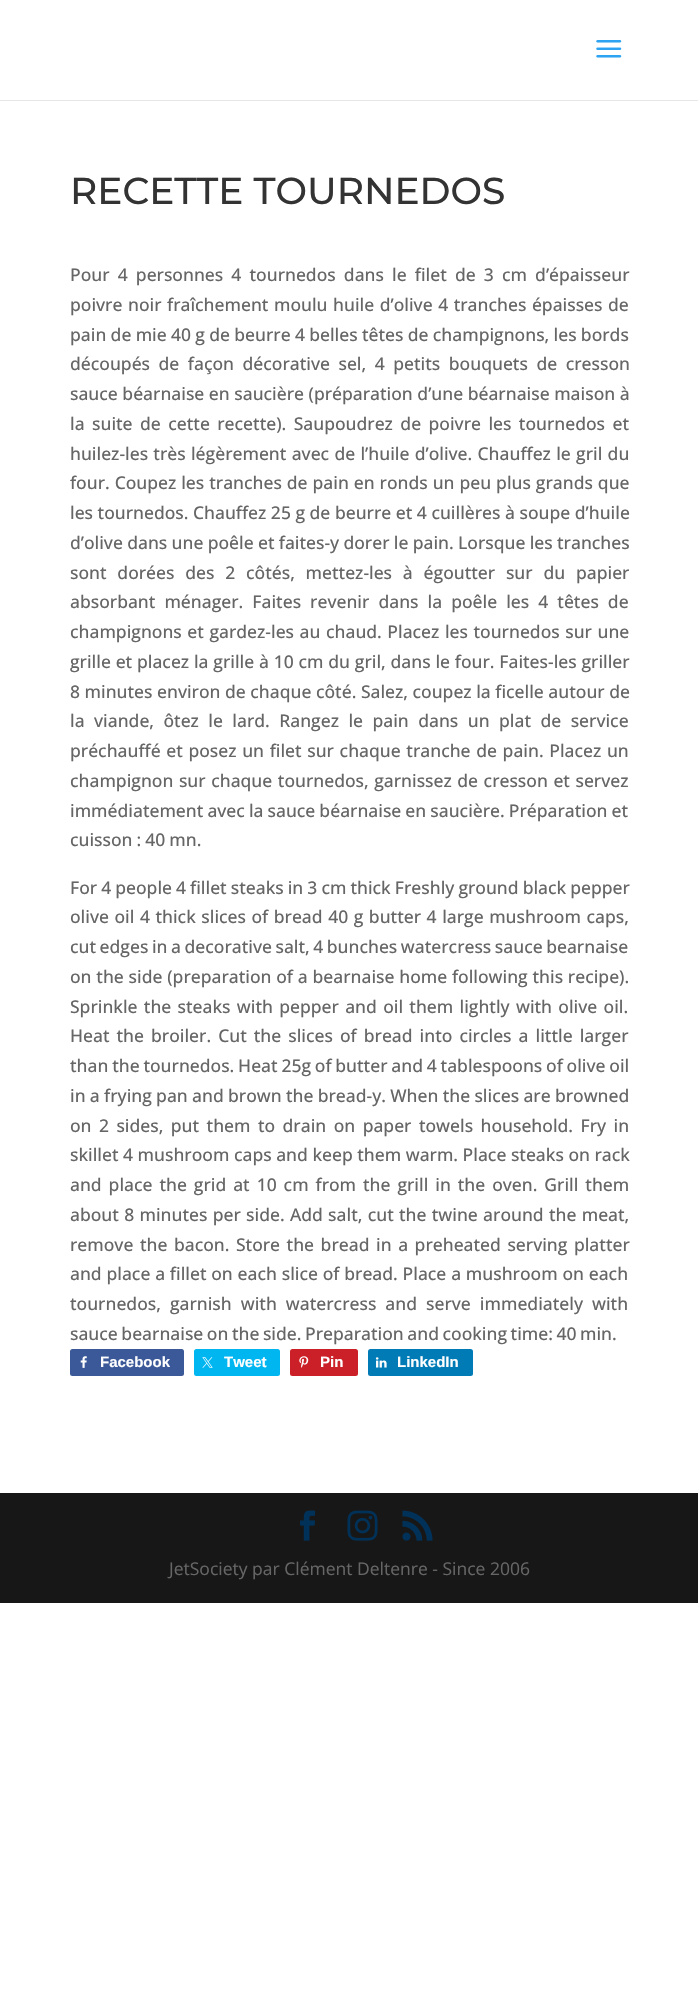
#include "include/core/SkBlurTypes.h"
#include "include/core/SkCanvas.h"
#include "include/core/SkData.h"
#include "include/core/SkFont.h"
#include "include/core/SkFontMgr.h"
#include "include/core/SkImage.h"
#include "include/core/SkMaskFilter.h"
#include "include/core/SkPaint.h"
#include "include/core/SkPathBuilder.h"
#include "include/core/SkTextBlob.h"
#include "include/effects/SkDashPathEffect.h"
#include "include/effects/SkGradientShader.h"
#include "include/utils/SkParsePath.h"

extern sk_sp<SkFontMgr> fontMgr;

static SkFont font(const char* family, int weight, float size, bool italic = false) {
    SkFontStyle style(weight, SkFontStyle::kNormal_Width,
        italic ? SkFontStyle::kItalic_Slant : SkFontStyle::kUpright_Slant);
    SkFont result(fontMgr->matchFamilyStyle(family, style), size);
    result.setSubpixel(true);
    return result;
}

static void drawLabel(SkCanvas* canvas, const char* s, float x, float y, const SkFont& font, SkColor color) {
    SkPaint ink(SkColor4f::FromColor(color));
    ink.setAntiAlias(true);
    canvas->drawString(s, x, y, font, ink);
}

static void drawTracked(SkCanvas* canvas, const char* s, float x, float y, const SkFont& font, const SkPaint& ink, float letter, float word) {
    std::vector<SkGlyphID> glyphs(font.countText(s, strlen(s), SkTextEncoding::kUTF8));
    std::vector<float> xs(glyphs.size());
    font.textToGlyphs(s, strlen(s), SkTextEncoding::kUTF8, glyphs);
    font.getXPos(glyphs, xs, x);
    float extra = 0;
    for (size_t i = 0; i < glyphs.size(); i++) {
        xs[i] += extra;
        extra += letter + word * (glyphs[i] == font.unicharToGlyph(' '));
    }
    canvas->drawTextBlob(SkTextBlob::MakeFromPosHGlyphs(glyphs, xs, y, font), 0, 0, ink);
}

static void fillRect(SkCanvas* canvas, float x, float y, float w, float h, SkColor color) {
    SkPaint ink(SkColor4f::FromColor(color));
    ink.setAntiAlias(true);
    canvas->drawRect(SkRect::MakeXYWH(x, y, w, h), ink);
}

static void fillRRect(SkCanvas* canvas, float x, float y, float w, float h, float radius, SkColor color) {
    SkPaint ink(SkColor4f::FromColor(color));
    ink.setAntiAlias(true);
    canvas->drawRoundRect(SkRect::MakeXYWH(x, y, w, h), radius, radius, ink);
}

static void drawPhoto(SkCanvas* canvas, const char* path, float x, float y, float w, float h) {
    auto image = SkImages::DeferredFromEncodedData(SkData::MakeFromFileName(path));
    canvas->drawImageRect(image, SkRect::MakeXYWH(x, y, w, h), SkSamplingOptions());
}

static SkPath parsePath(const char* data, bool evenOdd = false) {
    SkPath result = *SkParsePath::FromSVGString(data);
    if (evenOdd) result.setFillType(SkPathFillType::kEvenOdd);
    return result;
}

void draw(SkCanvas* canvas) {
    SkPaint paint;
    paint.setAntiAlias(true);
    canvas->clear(0xFFFFFFFF);
    paint.setColor(0xFFE6E6E6);
    canvas->drawPath(parsePath("M0 100V101H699V1V100Z"), paint);
    drawPhoto(canvas, "assets/img1.png", 596, 40, 26, 18);
    SkFont font1 = font("Montserrat", 500, 37.5f);
    drawLabel(canvas, "RECETTE TOURNEDOS", 70, 204, font1, 0xFF333333);
    SkFont font2 = font("Open Sans", 500, 17.5f);
    paint.setColor(0xFF666666);
    drawTracked(canvas, "Pour 4 personnes 4 tournedos dans le filet de 3 cm d’épaisseur", 70, 281, font2, paint, 0, 3.6f);
    drawTracked(canvas, "poivre noir fraîchement moulu huile d’olive 4 tranches épaisses de", 70, 311, font2, paint, 0, 1);
    drawTracked(canvas, "pain de mie 40 g de beurre 4 belles têtes de champignons, les bords", 70, 341, font2, paint, 0, -0.25f);
    drawTracked(canvas, "découpés de façon décorative sel, 4 petits bouquets de cresson", 70, 370, font2, paint, 0, 4);
    drawLabel(canvas, "sauce béarnaise en saucière (préparation d’une béarnaise maison à", 70, 400, font2, 0xFF666666);
    drawTracked(canvas, "la suite de cette recette). Saupoudrez de poivre les tournedos et", 70, 430, font2, paint, 0, 2.9f);
    drawTracked(canvas, "huilez-les très légèrement avec de l’huile d’olive. Chauffez le gril du", 70, 460, font2, paint, 0, 0.75f);
    drawTracked(canvas, "four. Coupez les tranches de pain en ronds un peu plus grands que", 70, 489, font2, paint, 0, 0.4f);
    drawLabel(canvas, "les tournedos. Chauffez 25 g de beurre et 4 cuillères à soupe d’huile", 70, 519, font2, 0xFF666666);
    drawTracked(canvas, "d’olive dans une poêle et faites-y dorer le pain. Lorsque les tranches", 70, 549, font2, paint, 0, -0.25f);
    drawTracked(canvas, "sont dorées des 2 côtés, mettez-les à égoutter sur du papier", 70, 579, font2, paint, 0, 6.25f);
    drawTracked(canvas, "absorbant ménager. Faites revenir dans la poêle les 4 têtes de", 70, 608, font2, paint, 0, 4.5f);
    drawTracked(canvas, "champignons et gardez-les au chaud. Placez les tournedos sur une", 70, 638, font2, paint, 0, 1);
    drawTracked(canvas, "grille et placez la grille à 10 cm du gril, dans le four. Faites-les griller", 70, 668, font2, paint, 0, 0.25f);
    drawLabel(canvas, "8 minutes environ de chaque côté. Salez, coupez la ficelle autour de", 70, 698, font2, 0xFF666666);
    drawTracked(canvas, "la viande, ôtez le lard. Rangez le pain dans un plat de service", 70, 727, font2, paint, 0, 4.9f);
    drawTracked(canvas, "préchauffé et posez un filet sur chaque tranche de pain. Placez un", 70, 757, font2, paint, 0, 1.1f);
    drawTracked(canvas, "champignon sur chaque tournedos, garnissez de cresson et servez", 70, 787, font2, paint, 0, 1);
    drawTracked(canvas, "immédiatement avec la sauce béarnaise en saucière. Préparation et", 70, 817, font2, paint, 0, -0.5f);
    drawTracked(canvas, "cuisson : 40 mn.", 70, 846, font2, paint, 0, -0.5f);
    drawTracked(canvas, "For 4 people 4 fillet steaks in 3 cm thick Freshly ground black pepper", 70, 894, font2, paint, 0, -0.5f);
    drawTracked(canvas, "olive oil 4 thick slices of bread 40 g butter 4 large mushroom caps,", 70, 923, font2, paint, 0, 1);
    drawTracked(canvas, "cut edges in a decorative salt, 4 bunches watercress sauce bearnaise", 70, 953, font2, paint, 0, -1);
    drawTracked(canvas, "on the side (preparation of a bearnaise home following this recipe).", 70, 983, font2, paint, 0, 0.25f);
    drawTracked(canvas, "Sprinkle the steaks with pepper and oil them lightly with olive oil.", 70, 1013, font2, paint, 0, 1.75f);
    drawTracked(canvas, "Heat the broiler. Cut the slices of bread into circles a little larger", 70, 1042, font2, paint, 0, 2.5f);
    drawTracked(canvas, "than the tournedos. Heat 25g of butter and 4 tablespoons of olive oil", 70, 1072, font2, paint, 0, -0.75f);
    drawTracked(canvas, "in a frying pan and brown the bread-y. When the slices are browned", 70, 1102, font2, paint, 0, -0.25f);
    drawTracked(canvas, "on 2 sides, put them to drain on paper towels household. Fry in", 70, 1132, font2, paint, 0, 2.9f);
    drawLabel(canvas, "skillet 4 mushroom caps and keep them warm. Place steaks on rack", 70, 1161, font2, 0xFF666666);
    drawTracked(canvas, "and place the grid at 10 cm from the grill in the oven. Grill them", 70, 1191, font2, paint, 0, 2.4f);
    drawTracked(canvas, "about 8 minutes per side. Add salt, cut the twine around the meat,", 70, 1221, font2, paint, 0, 0.75f);
    drawTracked(canvas, "remove the bacon. Store the bread in a preheated serving platter", 70, 1251, font2, paint, 0, 2);
    drawTracked(canvas, "and place a fillet on each slice of bread. Place a mushroom on each", 70, 1280, font2, paint, 0, 0.25f);
    drawTracked(canvas, "tournedos, garnish with watercress and serve immediately with", 70, 1310, font2, paint, 0, 4.5f);
    drawTracked(canvas, "sauce bearnaise on the side. Preparation and cooking time: 40 min.", 70, 1340, font2, paint, 0, -1);
    fillRRect(canvas, 70, 1349, 114, 27, 2.5f, 0xFF3B5998);
    drawPhoto(canvas, "assets/img2.png", 80, 1356, 7, 12);
    SkFont font3 = font("Liberation Sans", 700, 15);
    drawLabel(canvas, "Facebook", 100, 1367, font3, 0xFFFFFFFF);
    fillRRect(canvas, 194, 1349, 86, 27, 2.5f, 0xFF00B6F1);
    drawPhoto(canvas, "assets/img3.png", 202, 1357, 11, 11);
    drawLabel(canvas, "Tweet", 224, 1367, font3, 0xFFFFFFFF);
    fillRRect(canvas, 290, 1349, 68, 27, 2.5f, 0xFFCB2027);
    drawPhoto(canvas, "assets/img4.png", 299, 1356, 10, 12);
    drawLabel(canvas, "Pin", 320, 1367, font3, 0xFFFFFFFF);
    fillRRect(canvas, 368, 1349, 105, 27, 2.5f, 0xFF007BB6);
    drawPhoto(canvas, "assets/img5.png", 375, 1357, 12, 11);
    drawLabel(canvas, "LinkedIn", 397, 1367, font3, 0xFFFFFFFF);
    fillRect(canvas, 0, 1493, 698, 110, 0xFF171717);
    drawPhoto(canvas, "assets/img6.png", 300, 1510, 15, 31);
    drawPhoto(canvas, "assets/img7.png", 347, 1510, 31, 31);
    drawPhoto(canvas, "assets/img8.png", 402, 1510, 31, 31);
    SkFont font4 = font("Open Sans", 400, 17.5f);
    drawLabel(canvas, "JetSociety par Clément Deltenre - Since 2006", 169, 1575, font4, 0xFF666666);
}
